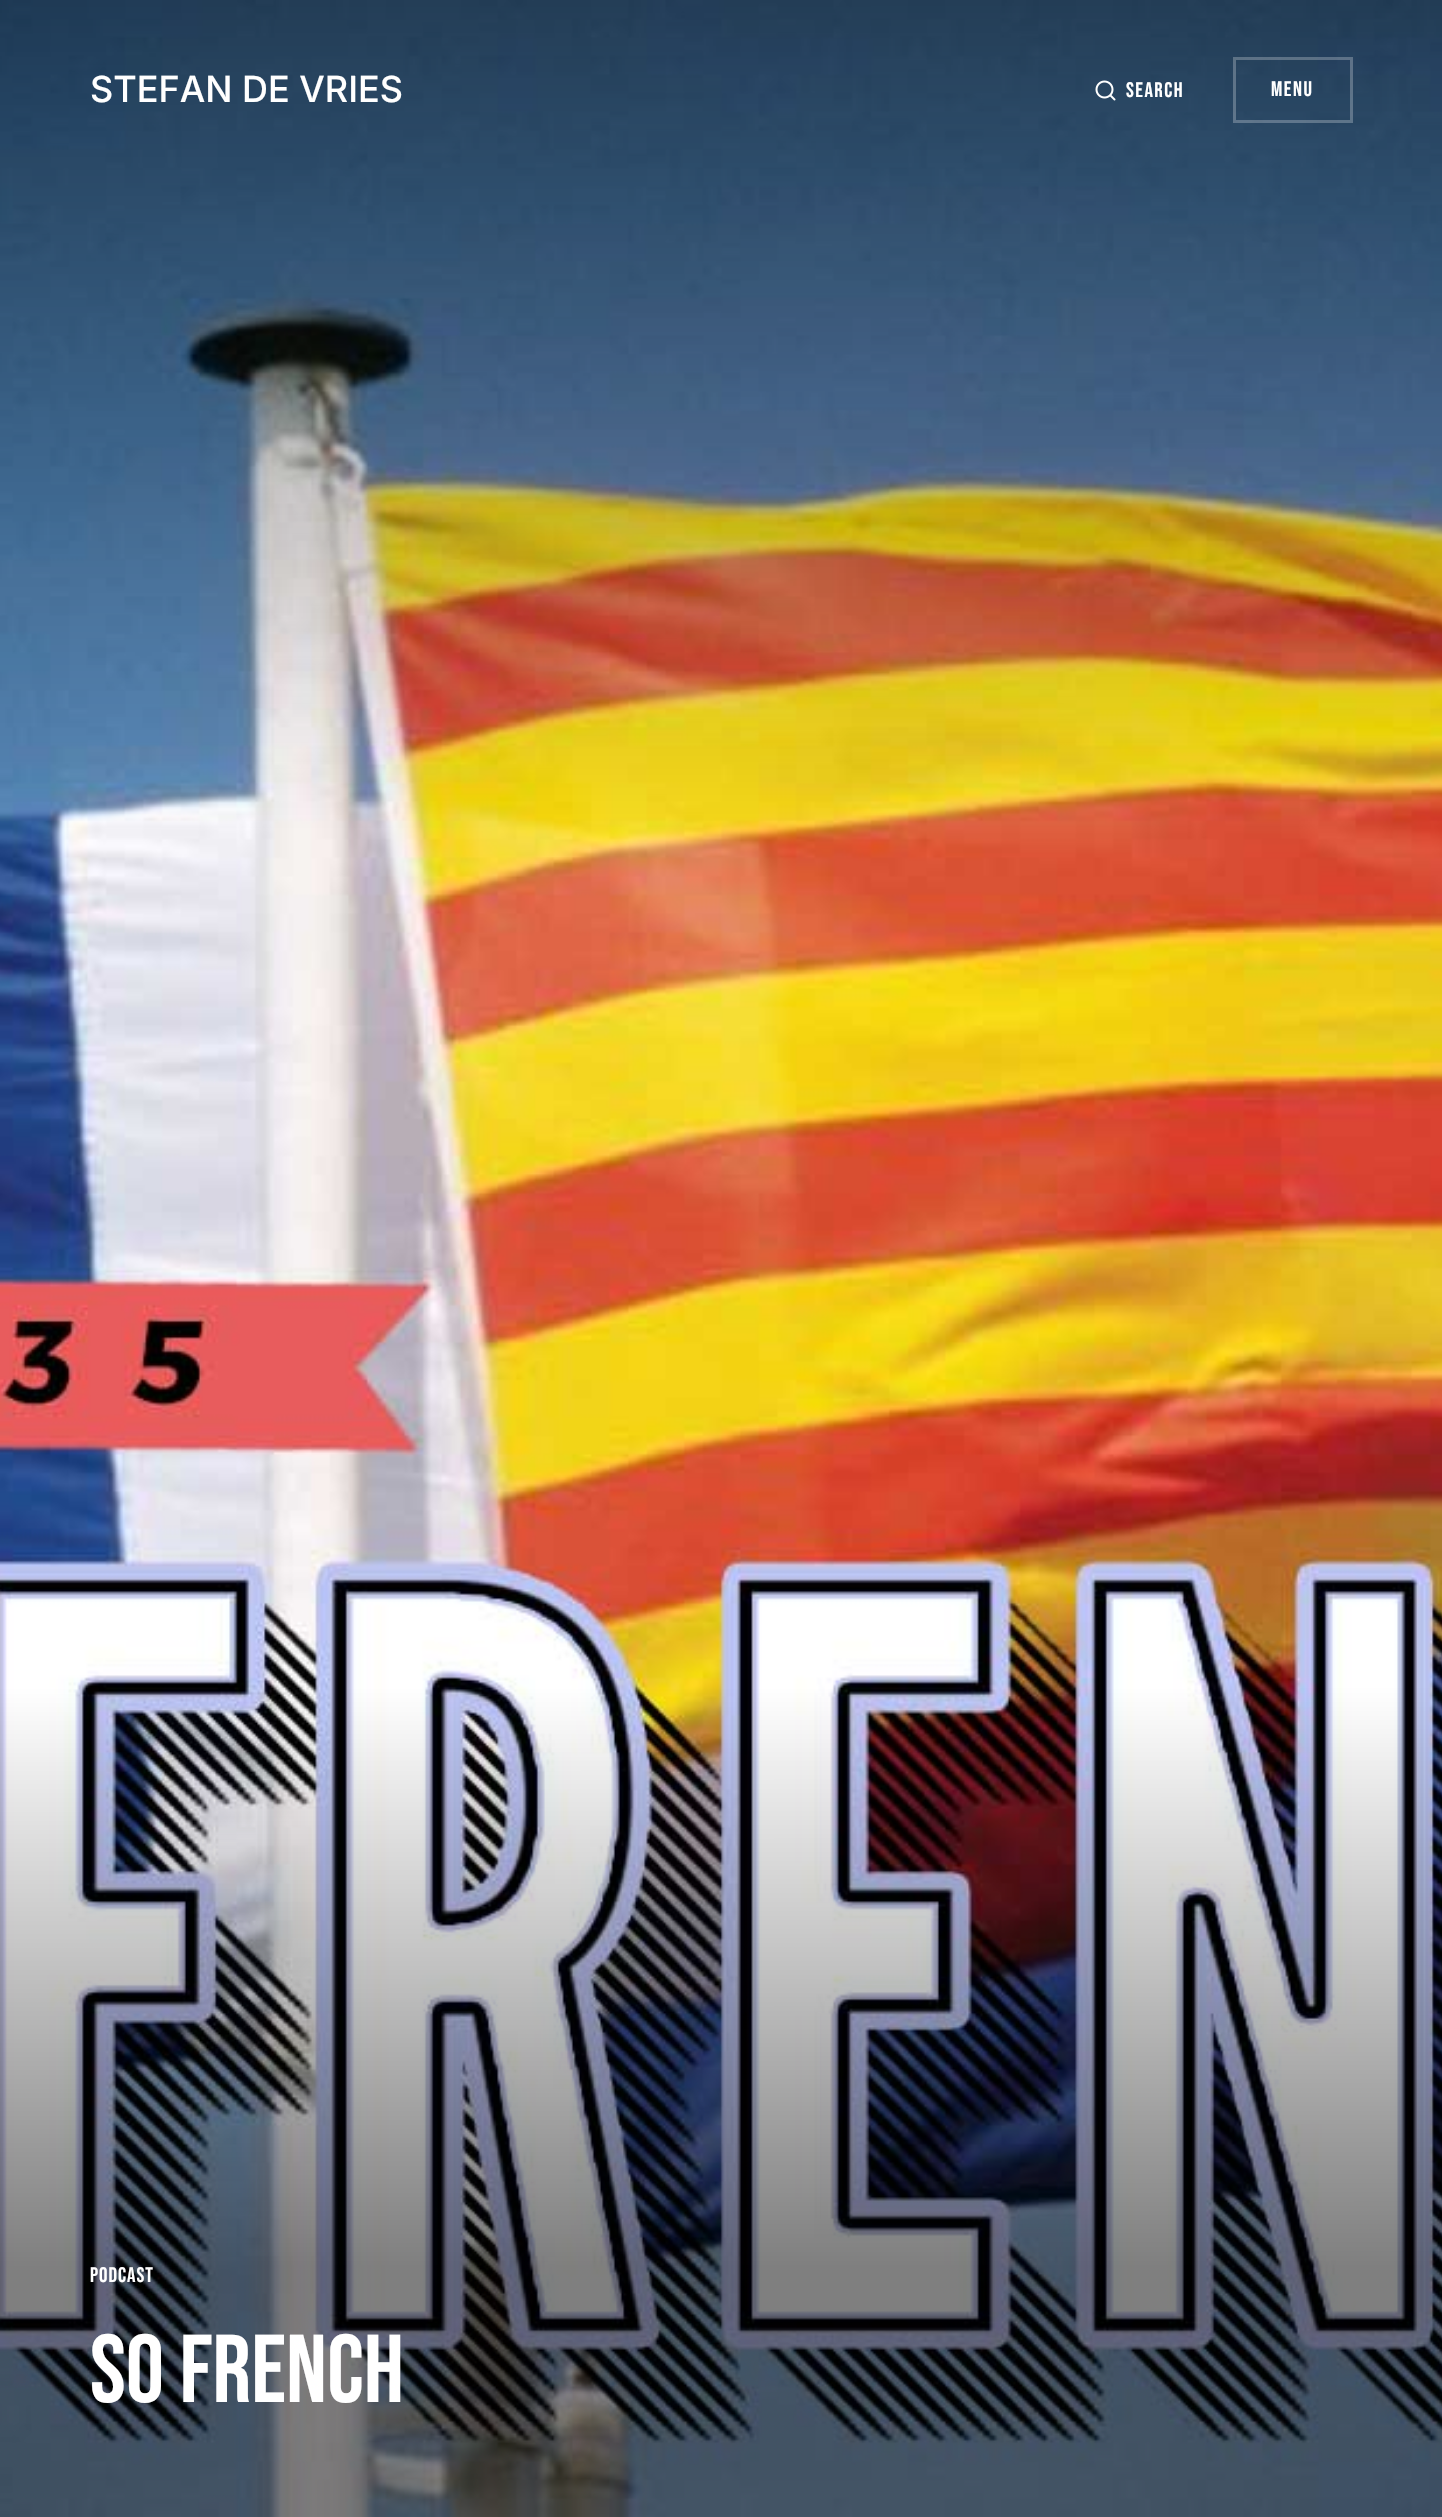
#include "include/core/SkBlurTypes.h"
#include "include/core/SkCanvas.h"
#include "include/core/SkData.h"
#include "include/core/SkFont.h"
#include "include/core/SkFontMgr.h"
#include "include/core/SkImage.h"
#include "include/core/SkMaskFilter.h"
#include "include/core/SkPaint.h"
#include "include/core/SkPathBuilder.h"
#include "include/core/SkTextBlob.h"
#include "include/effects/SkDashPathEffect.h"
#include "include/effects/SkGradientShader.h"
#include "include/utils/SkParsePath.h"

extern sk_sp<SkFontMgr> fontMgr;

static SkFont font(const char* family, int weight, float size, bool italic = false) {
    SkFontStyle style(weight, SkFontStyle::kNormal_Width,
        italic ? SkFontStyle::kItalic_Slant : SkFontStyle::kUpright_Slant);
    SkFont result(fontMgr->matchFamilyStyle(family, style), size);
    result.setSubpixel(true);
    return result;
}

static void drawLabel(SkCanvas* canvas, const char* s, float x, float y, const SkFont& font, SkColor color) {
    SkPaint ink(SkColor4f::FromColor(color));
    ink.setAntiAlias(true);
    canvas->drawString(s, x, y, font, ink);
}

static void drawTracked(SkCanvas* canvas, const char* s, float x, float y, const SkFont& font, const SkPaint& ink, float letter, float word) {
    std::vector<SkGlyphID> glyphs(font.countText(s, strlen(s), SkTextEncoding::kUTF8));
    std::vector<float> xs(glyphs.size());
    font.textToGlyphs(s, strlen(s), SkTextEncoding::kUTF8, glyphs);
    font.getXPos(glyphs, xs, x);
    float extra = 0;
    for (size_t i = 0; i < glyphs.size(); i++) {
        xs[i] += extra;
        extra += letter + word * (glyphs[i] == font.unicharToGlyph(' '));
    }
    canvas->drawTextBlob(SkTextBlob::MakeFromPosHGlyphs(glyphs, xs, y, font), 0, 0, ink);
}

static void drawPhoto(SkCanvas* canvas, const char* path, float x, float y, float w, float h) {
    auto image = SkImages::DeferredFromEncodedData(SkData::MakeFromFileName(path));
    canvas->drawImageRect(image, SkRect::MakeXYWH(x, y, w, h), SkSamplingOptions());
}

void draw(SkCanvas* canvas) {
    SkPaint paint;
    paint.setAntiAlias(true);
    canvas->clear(0xFFFFFFFF);
    drawPhoto(canvas, "assets/img1.png", 0, 0, 1442, 2517);
    SkFont font1 = font("Inter", 500, 36);
    drawLabel(canvas, "STEFAN DE VRIES", 90, 102, font1, 0xFFFFFFFF);
    drawPhoto(canvas, "assets/img2.png", 1095, 80, 21, 21);
    SkFont font2 = font("Bebas Neue", 400, 21);
    paint.setColor(0xFFFFFFFF);
    drawTracked(canvas, "Search", 1126, 97, font2, paint, 1.5f, 0);
    paint.setStroke(true);
    paint.setStrokeWidth(3);
    paint.setColor(0x40FFFFFF);
    canvas->drawRect(SkRect::MakeXYWH(1234.5f, 58.5f, 117, 63), paint);
    paint.setStroke(false);
    paint.setColor(0xFFFFFFFF);
    drawTracked(canvas, "Menu", 1271, 96, font2, paint, 1.5f, 0);
    drawTracked(canvas, "Podcast", 90, 2282, font2, paint, 1, 0);
    SkFont font3 = font("Bebas Neue", 400, 96);
    drawLabel(canvas, "So French", 90, 2402, font3, 0xFFFFFFFF);
}
